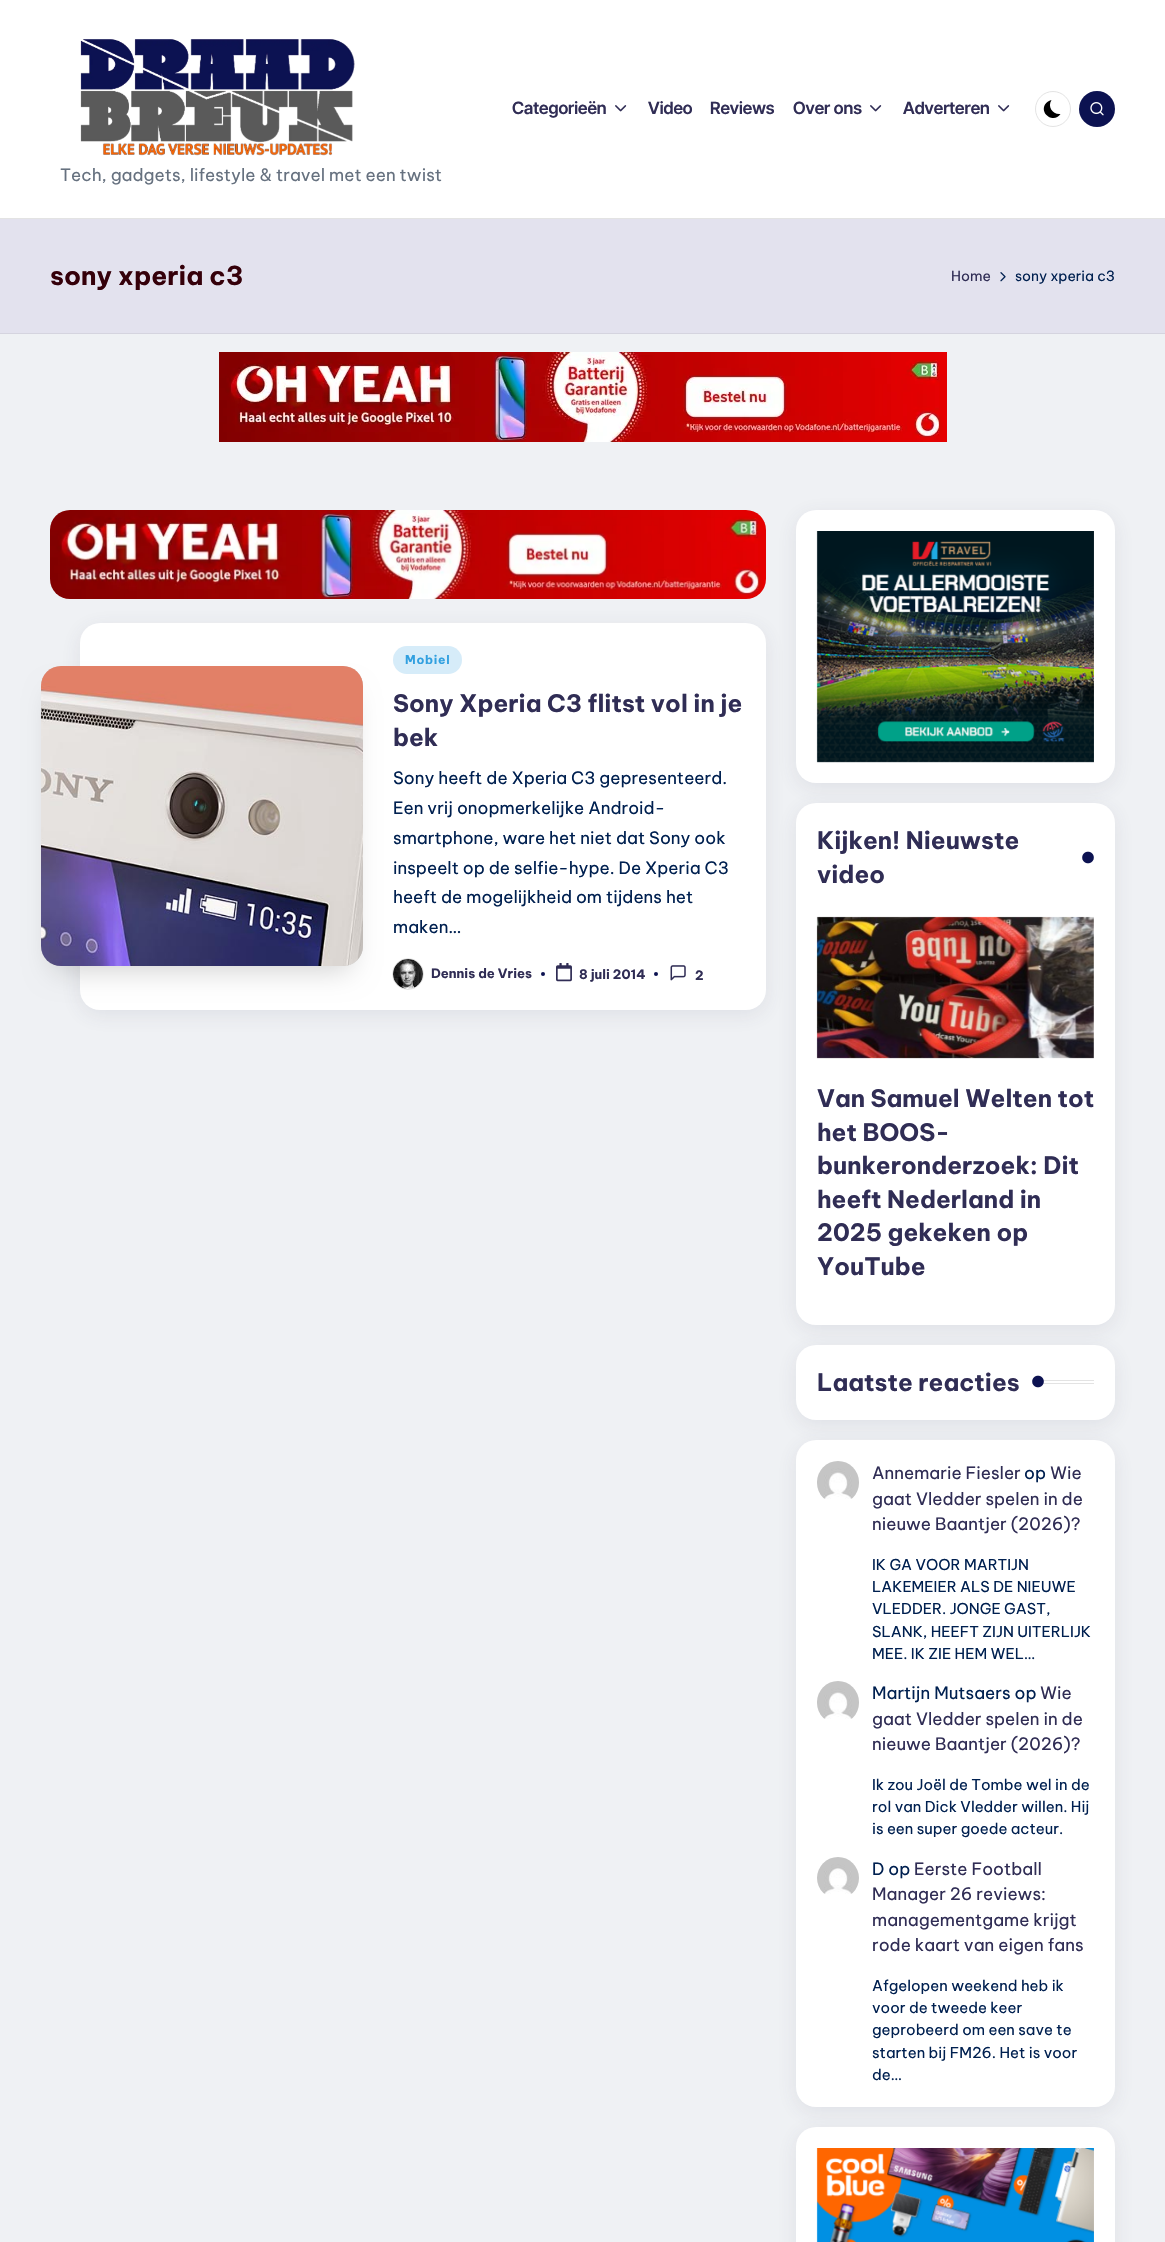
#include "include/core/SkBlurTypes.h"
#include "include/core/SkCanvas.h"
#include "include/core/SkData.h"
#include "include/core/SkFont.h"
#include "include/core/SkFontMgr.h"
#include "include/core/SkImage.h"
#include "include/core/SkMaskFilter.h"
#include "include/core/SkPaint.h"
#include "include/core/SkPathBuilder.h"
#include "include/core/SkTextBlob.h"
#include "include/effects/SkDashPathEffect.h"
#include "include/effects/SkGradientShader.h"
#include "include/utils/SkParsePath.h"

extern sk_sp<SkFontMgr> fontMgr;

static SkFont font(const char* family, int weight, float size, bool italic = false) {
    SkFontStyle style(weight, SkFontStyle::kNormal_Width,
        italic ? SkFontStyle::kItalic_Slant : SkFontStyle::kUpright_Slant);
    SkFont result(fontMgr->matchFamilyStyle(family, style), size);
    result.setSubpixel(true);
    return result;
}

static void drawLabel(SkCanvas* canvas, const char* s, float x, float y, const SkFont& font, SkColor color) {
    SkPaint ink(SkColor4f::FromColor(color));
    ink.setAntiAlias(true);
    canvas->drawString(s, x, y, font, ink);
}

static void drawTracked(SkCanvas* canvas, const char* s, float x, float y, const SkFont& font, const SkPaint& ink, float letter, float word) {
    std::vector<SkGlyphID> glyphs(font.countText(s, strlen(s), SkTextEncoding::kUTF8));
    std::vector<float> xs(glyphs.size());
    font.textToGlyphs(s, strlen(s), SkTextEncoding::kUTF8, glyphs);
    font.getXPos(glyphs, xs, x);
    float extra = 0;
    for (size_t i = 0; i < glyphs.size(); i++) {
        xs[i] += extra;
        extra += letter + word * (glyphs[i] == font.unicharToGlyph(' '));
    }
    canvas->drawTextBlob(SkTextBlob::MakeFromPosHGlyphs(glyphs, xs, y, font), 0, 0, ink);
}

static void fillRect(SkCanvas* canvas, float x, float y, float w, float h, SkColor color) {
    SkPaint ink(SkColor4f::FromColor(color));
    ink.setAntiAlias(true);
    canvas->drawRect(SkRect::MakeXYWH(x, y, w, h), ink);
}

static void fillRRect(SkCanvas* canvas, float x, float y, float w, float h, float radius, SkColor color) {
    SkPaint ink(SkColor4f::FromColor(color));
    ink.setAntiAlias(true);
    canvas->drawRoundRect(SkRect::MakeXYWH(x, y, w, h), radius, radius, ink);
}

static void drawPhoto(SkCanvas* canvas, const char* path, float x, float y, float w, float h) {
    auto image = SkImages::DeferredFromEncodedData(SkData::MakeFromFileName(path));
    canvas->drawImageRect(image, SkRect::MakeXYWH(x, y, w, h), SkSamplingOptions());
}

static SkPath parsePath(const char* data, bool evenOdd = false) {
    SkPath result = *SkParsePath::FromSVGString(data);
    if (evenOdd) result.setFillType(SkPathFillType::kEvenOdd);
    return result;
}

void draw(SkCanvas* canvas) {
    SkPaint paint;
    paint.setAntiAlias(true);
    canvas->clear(0xFFEFF1F4);
    fillRect(canvas, 0, 0, 1165, 218, 0xFFFFFFFF);
    fillRect(canvas, 0, 218, 1165, 1, 0xFFE3E3E3);
    SkFont font1 = font("Inter Tight", 600, 17);
    drawLabel(canvas, "Categorieën", 512, 114, font1, 0xFF302D55);
    drawPhoto(canvas, "assets/img1.png", 615, 105, 12, 7);
    drawLabel(canvas, "Video", 648, 114, font1, 0xFF302D55);
    drawLabel(canvas, "Reviews", 710, 114, font1, 0xFF302D55);
    drawLabel(canvas, "Over ons", 793, 114, font1, 0xFF302D55);
    drawPhoto(canvas, "assets/img1.png", 870, 105, 12, 7);
    drawLabel(canvas, "Adverteren", 903, 114, font1, 0xFF302D55);
    drawPhoto(canvas, "assets/img1.png", 998, 105, 12, 7);
    paint.setStroke(true);
    paint.setStrokeWidth(1);
    paint.setColor(0xFFE3E3E3);
    canvas->drawCircle(1053, 109, 17.5f, paint);
    paint.setStroke(false);
    paint.setColor(0xFF000000);
    canvas->drawPath(parsePath("M1060.5 114C1053 115 1047 107 1051.5 100C1048.5 100.5 1046.5 102.5 1045 104.5C1039.5 114.5 1054.5 123.5 1060.5 114Z"), paint);
    paint.setColor(0xFF0C1251);
    canvas->drawCircle(1097, 109, 18, paint);
    drawPhoto(canvas, "assets/img2.png", 1090, 102, 14, 14);
    drawPhoto(canvas, "assets/img3.png", 80, 39, 275, 117);
    SkFont font2 = font("Be Vietnam Pro", 400, 17);
    drawLabel(canvas, "Tech, gadgets, lifestyle & travel met een twist", 60, 181, font2, 0xFF66717F);
    fillRect(canvas, 0, 219, 1165, 114, 0xFFE3E2EE);
    fillRect(canvas, 0, 333, 1165, 1, 0xFFD5D4DF);
    SkFont font3 = font("Be Vietnam Pro", 700, 26);
    drawLabel(canvas, "sony xperia c3", 50, 285, font3, 0xFF35000A);
    SkFont font4 = font("Be Vietnam Pro", 400, 14);
    drawLabel(canvas, "Home", 951, 281, font4, 0xFF302D55);
    drawPhoto(canvas, "assets/img4.png", 1000, 272, 6, 10);
    drawLabel(canvas, "sony xperia c3", 1015, 281, font4, 0xFF002050);
    drawPhoto(canvas, "assets/img5.png", 219, 352, 728, 90);
    drawPhoto(canvas, "assets/img6.png", 50, 510, 716, 89);
    paint.setColor(0x1A454360);
    paint.setMaskFilter(SkMaskFilter::MakeBlur(kNormal_SkBlurStyle, 10));
    canvas->drawRoundRect(SkRect::MakeXYWH(80, 628, 686, 387), 20, 20, paint);
    paint.setMaskFilter(nullptr);
    fillRRect(canvas, 80, 623, 686, 387, 20, 0xFFFFFFFF);
    fillRRect(canvas, 393, 646, 69, 28, 14, 0xFFD6ECF9);
    drawPhoto(canvas, "assets/img8.png", 393, 959, 30, 30);
    paint.setStroke(true);
    paint.setColor(0x66B9B9B9);
    canvas->drawCircle(408, 974, 15.5f, paint);
    paint.setStroke(false);
    paint.setColor(0x2E000000);
    paint.setMaskFilter(SkMaskFilter::MakeBlur(kNormal_SkBlurStyle, 14));
    canvas->drawRoundRect(SkRect::MakeXYWH(53, 694, 298, 276), 8, 8, paint);
    paint.setMaskFilter(nullptr);
    fillRRect(canvas, 41, 666, 322, 300, 20, 0xFFD1D1D1);
    drawPhoto(canvas, "assets/img7.png", 41, 666, 322, 300);
    SkFont font5 = font("Be Vietnam Pro", 700, 12);
    paint.setColor(0xFF31A0E0);
    drawTracked(canvas, "Mobiel", 405, 664, font5, paint, 0.75f, 0);
    SkFont font6 = font("Be Vietnam Pro", 700, 24);
    drawLabel(canvas, "Sony Xperia C3 flitst vol in je", 393, 712, font6, 0xFF302D55);
    drawLabel(canvas, "bek", 393, 746, font6, 0xFF302D55);
    drawLabel(canvas, "Sony heeft de Xperia C3 gepresenteerd.", 393, 784, font2, 0xFF002050);
    drawLabel(canvas, "Een vrij onopmerkelijke Android-", 393, 814, font2, 0xFF002050);
    drawLabel(canvas, "smartphone, ware het niet dat Sony ook", 393, 844, font2, 0xFF002050);
    drawLabel(canvas, "inspeelt op de selfie-hype. De Xperia C3", 393, 874, font2, 0xFF002050);
    drawLabel(canvas, "heeft de mogelijkheid om tijdens het", 393, 903, font2, 0xFF002050);
    drawLabel(canvas, "maken…", 393, 933, font2, 0xFF002050);
    SkFont font7 = font("Be Vietnam Pro", 700, 13);
    drawLabel(canvas, "Dennis de Vries", 431, 978, font7, 0xFF302D55);
    paint.setColor(0xFF0C1251);
    canvas->drawCircle(543, 974, 2, paint);
    drawPhoto(canvas, "assets/img9.png", 556, 963, 16, 19);
    drawLabel(canvas, "8 juli 2014", 579, 979, font7, 0xFF302D55);
    canvas->drawCircle(656, 974, 2, paint);
    drawPhoto(canvas, "assets/img10.png", 670, 965, 16, 16);
    drawLabel(canvas, "2", 695, 980, font7, 0xFF302D55);
    paint.setColor(0x1A454360);
    paint.setMaskFilter(SkMaskFilter::MakeBlur(kNormal_SkBlurStyle, 10));
    canvas->drawRoundRect(SkRect::MakeXYWH(796, 515, 319, 273), 20, 20, paint);
    paint.setMaskFilter(nullptr);
    fillRRect(canvas, 796, 510, 319, 273, 20, 0xFFFFFFFF);
    drawPhoto(canvas, "assets/img11.png", 816, 531, 278, 232);
    paint.setMaskFilter(SkMaskFilter::MakeBlur(kNormal_SkBlurStyle, 10));
    canvas->drawRoundRect(SkRect::MakeXYWH(796, 808, 319, 522), 20, 20, paint);
    paint.setMaskFilter(nullptr);
    fillRRect(canvas, 796, 803, 319, 522, 20, 0xFFFFFFFF);
    drawLabel(canvas, "Kijken! Nieuwste", 817, 849, font6, 0xFF302D55);
    fillRect(canvas, 1082, 859, 12, 1, 0xFFE3E3E3);
    drawPhoto(canvas, "assets/img12.png", 1082, 851, 12, 13);
    drawLabel(canvas, "video", 817, 883, font6, 0xFF302D55);
    drawPhoto(canvas, "assets/img13.png", 816, 916, 278, 143);
    drawLabel(canvas, "Van Samuel Welten tot", 817, 1107, font6, 0xFF302D55);
    drawLabel(canvas, "het BOOS-", 817, 1141, font6, 0xFF302D55);
    drawLabel(canvas, "bunkeronderzoek: Dit", 817, 1174, font6, 0xFF302D55);
    drawLabel(canvas, "heeft Nederland in", 817, 1208, font6, 0xFF302D55);
    drawLabel(canvas, "2025 gekeken op", 817, 1241, font6, 0xFF302D55);
    drawLabel(canvas, "YouTube", 817, 1275, font6, 0xFF302D55);
    paint.setMaskFilter(SkMaskFilter::MakeBlur(kNormal_SkBlurStyle, 10));
    canvas->drawRoundRect(SkRect::MakeXYWH(796, 1350, 319, 75), 20, 20, paint);
    paint.setMaskFilter(nullptr);
    fillRRect(canvas, 796, 1345, 319, 75, 20, 0xFFFFFFFF);
    drawLabel(canvas, "Laatste reacties", 817, 1391, font6, 0xFF302D55);
    fillRect(canvas, 1032, 1380, 62, 1, 0xFFE3E3E3);
    fillRect(canvas, 1032, 1383, 62, 1, 0xFFE3E3E3);
    drawPhoto(canvas, "assets/img12.png", 1032, 1375, 12, 13);
    paint.setMaskFilter(SkMaskFilter::MakeBlur(kNormal_SkBlurStyle, 10));
    canvas->drawRoundRect(SkRect::MakeXYWH(796, 1445, 319, 667), 20, 20, paint);
    paint.setMaskFilter(nullptr);
    fillRRect(canvas, 796, 1440, 319, 667, 20, 0xFFFFFFFF);
    drawPhoto(canvas, "assets/img14.png", 817, 1461, 42, 38);
    drawLabel(canvas, "Annemarie Fiesler", 872, 1479, font2, 0xFF302D55);
    drawLabel(canvas, "op", 1024, 1479, font2, 0xFF002050);
    drawLabel(canvas, "Wie", 1050, 1479, font2, 0xFF302D55);
    drawLabel(canvas, "gaat Vledder spelen in de", 872, 1505, font2, 0xFF302D55);
    drawLabel(canvas, "nieuwe Baantjer (2026)?", 872, 1530, font2, 0xFF302D55);
    SkFont font8 = font("Be Vietnam Pro", 400, 14.9f);
    drawLabel(canvas, "IK GA VOOR MARTIJN", 872, 1570, font8, 0xFF002050);
    drawLabel(canvas, "LAKEMEIER ALS DE NIEUWE", 872, 1592, font8, 0xFF002050);
    drawLabel(canvas, "VLEDDER. JONGE GAST,", 872, 1614, font8, 0xFF002050);
    drawLabel(canvas, "SLANK, HEEFT ZIJN UITERLIJK", 872, 1637, font8, 0xFF002050);
    drawLabel(canvas, "MEE. IK ZIE HEM WEL…", 872, 1659, font8, 0xFF002050);
    drawPhoto(canvas, "assets/img14.png", 817, 1681, 42, 38);
    drawLabel(canvas, "Martijn Mutsaers op", 872, 1699, font2, 0xFF002050);
    drawLabel(canvas, "Wie", 1040, 1699, font2, 0xFF302D55);
    drawLabel(canvas, "gaat Vledder spelen in de", 872, 1725, font2, 0xFF302D55);
    drawLabel(canvas, "nieuwe Baantjer (2026)?", 872, 1750, font2, 0xFF302D55);
    drawLabel(canvas, "Ik zou Joël de Tombe wel in de", 872, 1790, font8, 0xFF002050);
    drawLabel(canvas, "rol van Dick Vledder willen. Hij", 872, 1812, font8, 0xFF002050);
    drawLabel(canvas, "is een super goede acteur.", 872, 1834, font8, 0xFF002050);
    drawPhoto(canvas, "assets/img15.png", 817, 1857, 42, 37);
    drawLabel(canvas, "D op", 872, 1875, font2, 0xFF002050);
    drawLabel(canvas, "Eerste Football", 914, 1875, font2, 0xFF302D55);
    drawLabel(canvas, "Manager 26 reviews:", 872, 1900, font2, 0xFF302D55);
    drawLabel(canvas, "managementgame krijgt", 872, 1926, font2, 0xFF302D55);
    drawLabel(canvas, "rode kaart van eigen fans", 872, 1951, font2, 0xFF302D55);
    drawLabel(canvas, "Afgelopen weekend heb ik", 872, 1991, font8, 0xFF002050);
    drawLabel(canvas, "voor de tweede keer", 872, 2013, font8, 0xFF002050);
    drawLabel(canvas, "geprobeerd om een save te", 872, 2035, font8, 0xFF002050);
    drawLabel(canvas, "starten bij FM26. Het is voor", 872, 2058, font8, 0xFF002050);
    drawLabel(canvas, "de…", 872, 2080, font8, 0xFF002050);
    paint.setMaskFilter(SkMaskFilter::MakeBlur(kNormal_SkBlurStyle, 10));
    canvas->drawRoundRect(SkRect::MakeXYWH(796, 2132, 319, 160), 20, 20, paint);
    paint.setMaskFilter(nullptr);
    fillRRect(canvas, 796, 2127, 319, 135, 20, 0xFFFFFFFF);
    drawPhoto(canvas, "assets/img16.png", 816, 2148, 278, 94);
}
